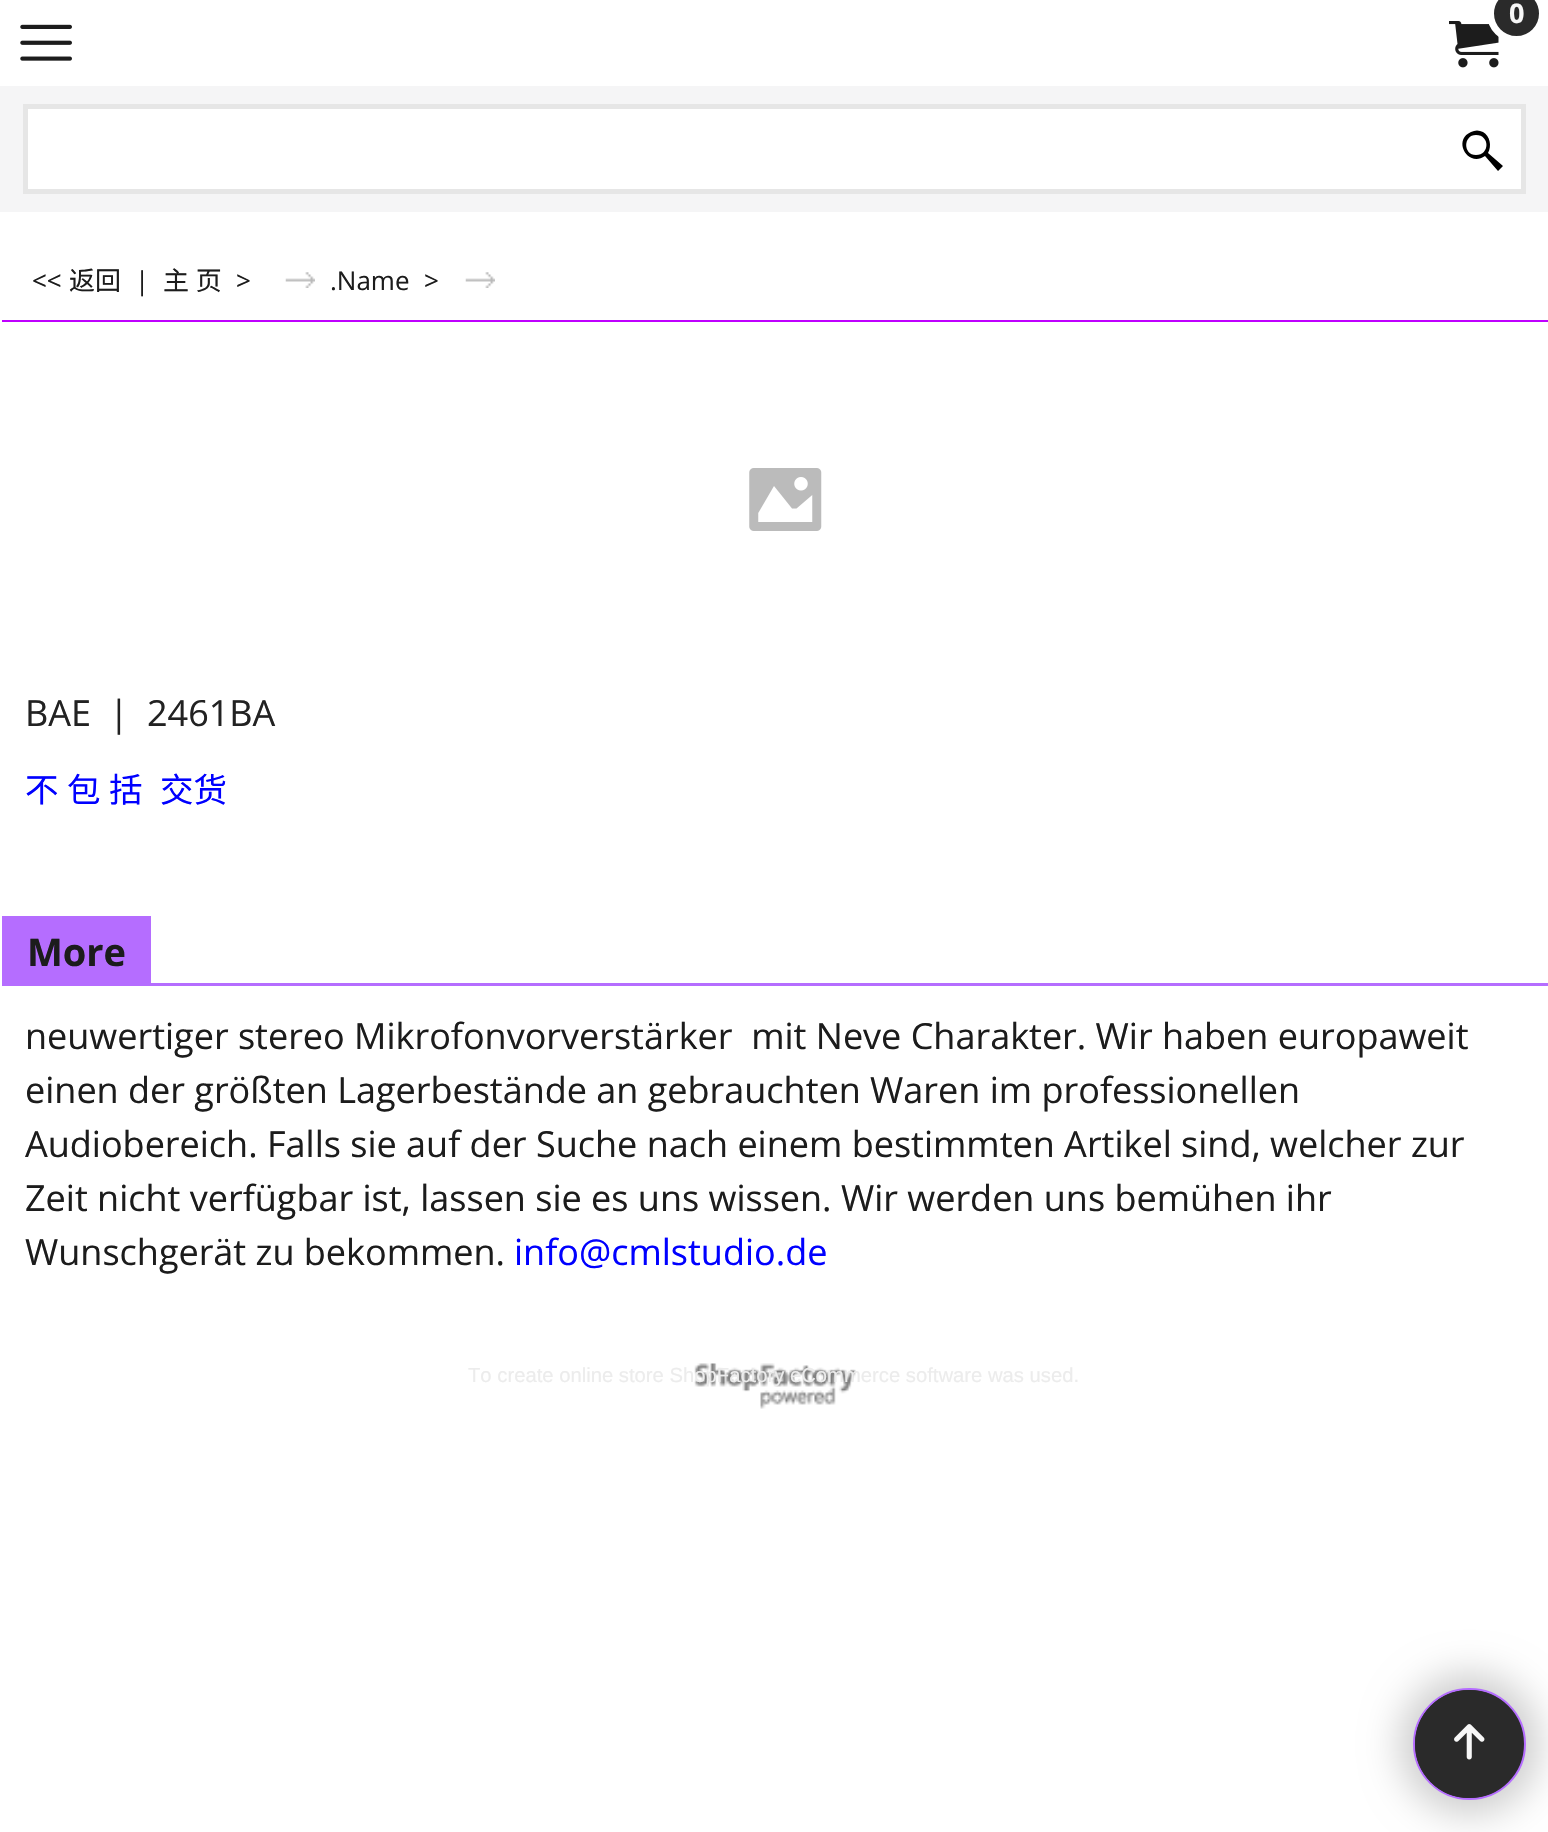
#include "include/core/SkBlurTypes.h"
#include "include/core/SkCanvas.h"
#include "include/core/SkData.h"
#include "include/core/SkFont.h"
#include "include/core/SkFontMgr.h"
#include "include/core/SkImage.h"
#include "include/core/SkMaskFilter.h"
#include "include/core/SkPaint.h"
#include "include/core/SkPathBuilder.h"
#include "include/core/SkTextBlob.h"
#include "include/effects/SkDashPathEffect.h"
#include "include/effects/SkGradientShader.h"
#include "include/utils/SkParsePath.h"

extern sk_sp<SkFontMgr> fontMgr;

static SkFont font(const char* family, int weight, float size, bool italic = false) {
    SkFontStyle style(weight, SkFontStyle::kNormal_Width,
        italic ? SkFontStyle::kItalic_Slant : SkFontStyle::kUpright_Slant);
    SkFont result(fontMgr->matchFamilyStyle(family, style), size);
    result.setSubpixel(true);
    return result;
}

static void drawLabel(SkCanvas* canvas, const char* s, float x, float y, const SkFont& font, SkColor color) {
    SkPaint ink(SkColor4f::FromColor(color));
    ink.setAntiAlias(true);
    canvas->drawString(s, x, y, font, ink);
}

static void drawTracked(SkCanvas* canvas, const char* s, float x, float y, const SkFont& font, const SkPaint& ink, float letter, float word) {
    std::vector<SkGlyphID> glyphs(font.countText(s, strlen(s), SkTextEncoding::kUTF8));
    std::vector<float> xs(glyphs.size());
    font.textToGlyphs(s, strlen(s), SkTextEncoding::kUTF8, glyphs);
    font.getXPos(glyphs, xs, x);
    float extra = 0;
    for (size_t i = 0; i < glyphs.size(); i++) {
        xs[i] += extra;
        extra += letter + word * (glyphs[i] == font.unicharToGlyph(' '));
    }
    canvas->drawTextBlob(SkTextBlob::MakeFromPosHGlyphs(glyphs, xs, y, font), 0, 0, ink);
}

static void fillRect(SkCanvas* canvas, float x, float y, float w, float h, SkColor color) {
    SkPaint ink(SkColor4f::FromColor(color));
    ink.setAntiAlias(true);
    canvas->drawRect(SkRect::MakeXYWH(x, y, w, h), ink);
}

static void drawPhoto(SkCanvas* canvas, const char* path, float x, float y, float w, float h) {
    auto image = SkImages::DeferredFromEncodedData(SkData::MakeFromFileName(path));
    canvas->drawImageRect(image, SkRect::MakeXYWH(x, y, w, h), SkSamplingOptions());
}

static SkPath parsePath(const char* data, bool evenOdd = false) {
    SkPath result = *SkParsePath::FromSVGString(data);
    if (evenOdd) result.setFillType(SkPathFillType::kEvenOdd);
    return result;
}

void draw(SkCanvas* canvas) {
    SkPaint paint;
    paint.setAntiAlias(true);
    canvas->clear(0xFFFFFFFF);
    drawPhoto(canvas, "assets/img1.png", 1449, 21, 50, 47);
    paint.setColor(0xFF2A2A2A);
    canvas->drawCircle(1516.5f, 13.5f, 26, paint);
    paint.setStroke(true);
    paint.setStrokeWidth(7);
    paint.setColor(0xFFFFFFFF);
    canvas->drawCircle(1516.5f, 13.5f, 26, paint);
    SkFont font1 = font("Open Sans", 700, 27);
    drawLabel(canvas, "0", 1509, 23, font1, 0xFFF7F7F7);
    drawPhoto(canvas, "assets/img2.png", 20, 24, 52, 37);
    fillRect(canvas, 0, 86, 1548, 126, 0xFFF5F5F6);
    paint.setStroke(false);
    canvas->drawRect(SkRect::MakeXYWH(25.5f, 106.5f, 1498, 85), paint);
    paint.setStroke(true);
    paint.setStrokeWidth(5);
    paint.setColor(0xFFE6E6E6);
    canvas->drawRect(SkRect::MakeXYWH(25.5f, 106.5f, 1498, 85), paint);
    paint.setStroke(false);
    paint.setColor(0xFF000000);
    canvas->drawPath(parsePath("M1488 153C1492 146 1490 136 1483 132C1479 130 1475 130 1471 132C1452 140 1468 168 1485 156L1498 171L1503 166ZM1476 155C1463 155 1463 135 1476 135C1490 135 1490 155 1476 155Z"), paint);
    fillRect(canvas, 2, 320, 1546, 2, 0xFFBF00FF);
    SkFont font2 = font("Open Sans", 400, 26);
    drawLabel(canvas, "<<", 32, 290, font2, 0xFF1C1C1C);
    SkFont font3 = font("Noto Sans CJK SC", 400, 26);
    drawLabel(canvas, "返回", 69, 290, font3, 0xFF1C1C1C);
    drawLabel(canvas, "|", 135, 290, font2, 0xFF1C1C1C);
    paint.setColor(0xFF1C1C1C);
    drawTracked(canvas, "主 页", 163, 290, font3, paint, 0, 1);
    drawLabel(canvas, ">", 236, 290, font2, 0xFF1C1C1C);
    drawPhoto(canvas, "assets/img3.png", 285, 272, 30, 16);
    drawLabel(canvas, ".Name", 330, 290, font2, 0xFF1C1C1C);
    drawLabel(canvas, ">", 424, 290, font2, 0xFF1C1C1C);
    drawPhoto(canvas, "assets/img3.png", 465, 272, 30, 16);
    drawPhoto(canvas, "assets/img4.png", 749, 468, 73, 63);
    SkFont font4 = font("Open Sans", 400, 36);
    drawLabel(canvas, "BAE", 25, 726, font4, 0xFF222222);
    drawLabel(canvas, "|", 109, 726, font4, 0xFF222222);
    drawLabel(canvas, "2461BA", 147, 726, font4, 0xFF222222);
    SkFont font5 = font("Noto Sans CJK SC", 400, 33.5f);
    paint.setColor(0xFF0000FF);
    drawTracked(canvas, "不 包 括", 25, 802, font5, paint, 0, 1);
    drawLabel(canvas, "交货", 160, 802, font5, 0xFF0000FF);
    fillRect(canvas, 2, 916, 149, 70, 0xFFB56DFF);
    SkFont font6 = font("Open Sans", 700, 38);
    drawLabel(canvas, "More", 27, 966, font6, 0xFF1C1C1C);
    fillRect(canvas, 151, 983, 1397, 3, 0xFFB56DFF);
    drawLabel(canvas, "neuwertiger stereo Mikrofonvorverstärker  mit Neve Charakter. Wir haben europaweit", 25, 1049, font4, 0xFF1C1C1C);
    drawLabel(canvas, "einen der größten Lagerbestände an gebrauchten Waren im professionellen", 25, 1103, font4, 0xFF1C1C1C);
    drawLabel(canvas, "Audiobereich. Falls sie auf der Suche nach einem bestimmten Artikel sind, welcher zur", 25, 1157, font4, 0xFF1C1C1C);
    drawLabel(canvas, "Zeit nicht verfügbar ist, lassen sie es uns wissen. Wir werden uns bemühen ihr", 25, 1211, font4, 0xFF1C1C1C);
    drawLabel(canvas, "Wunschgerät zu bekommen.", 25, 1265, font4, 0xFF1C1C1C);
    drawLabel(canvas, "info@cmlstudio.de", 514, 1265, font4, 0xFF0000FF);
    drawPhoto(canvas, "assets/img5.png", 694, 1363, 162, 46);
    SkFont font7 = font("Liberation Sans", 400, 20.25f);
    drawLabel(canvas, "To create online store ShopFactory eCommerce software was used.", 468, 1382, font7, 0xFFECECEC);
    paint.setColor(0x33000000);
    paint.setMaskFilter(SkMaskFilter::MakeBlur(kNormal_SkBlurStyle, 19));
    canvas->drawRoundRect(SkRect::MakeXYWH(1400, 1674, 139, 140), 69.5f, 69.5f, paint);
    paint.setMaskFilter(nullptr);
    paint.setColor(0xFF2A2A2A);
    canvas->drawRoundRect(SkRect::MakeXYWH(1414, 1689, 111, 110), 55, 55, paint);
    paint.setStroke(true);
    paint.setStrokeWidth(2);
    paint.setColor(0xFFB56DFF);
    canvas->drawRoundRect(SkRect::MakeXYWH(1414, 1689, 111, 110), 55, 55, paint);
    paint.setStroke(false);
    paint.setColor(0xFF2A2A2A);
    canvas->drawCircle(1469, 1744, 54, paint);
    drawPhoto(canvas, "assets/img6.png", 1454, 1724, 31, 36);
}
